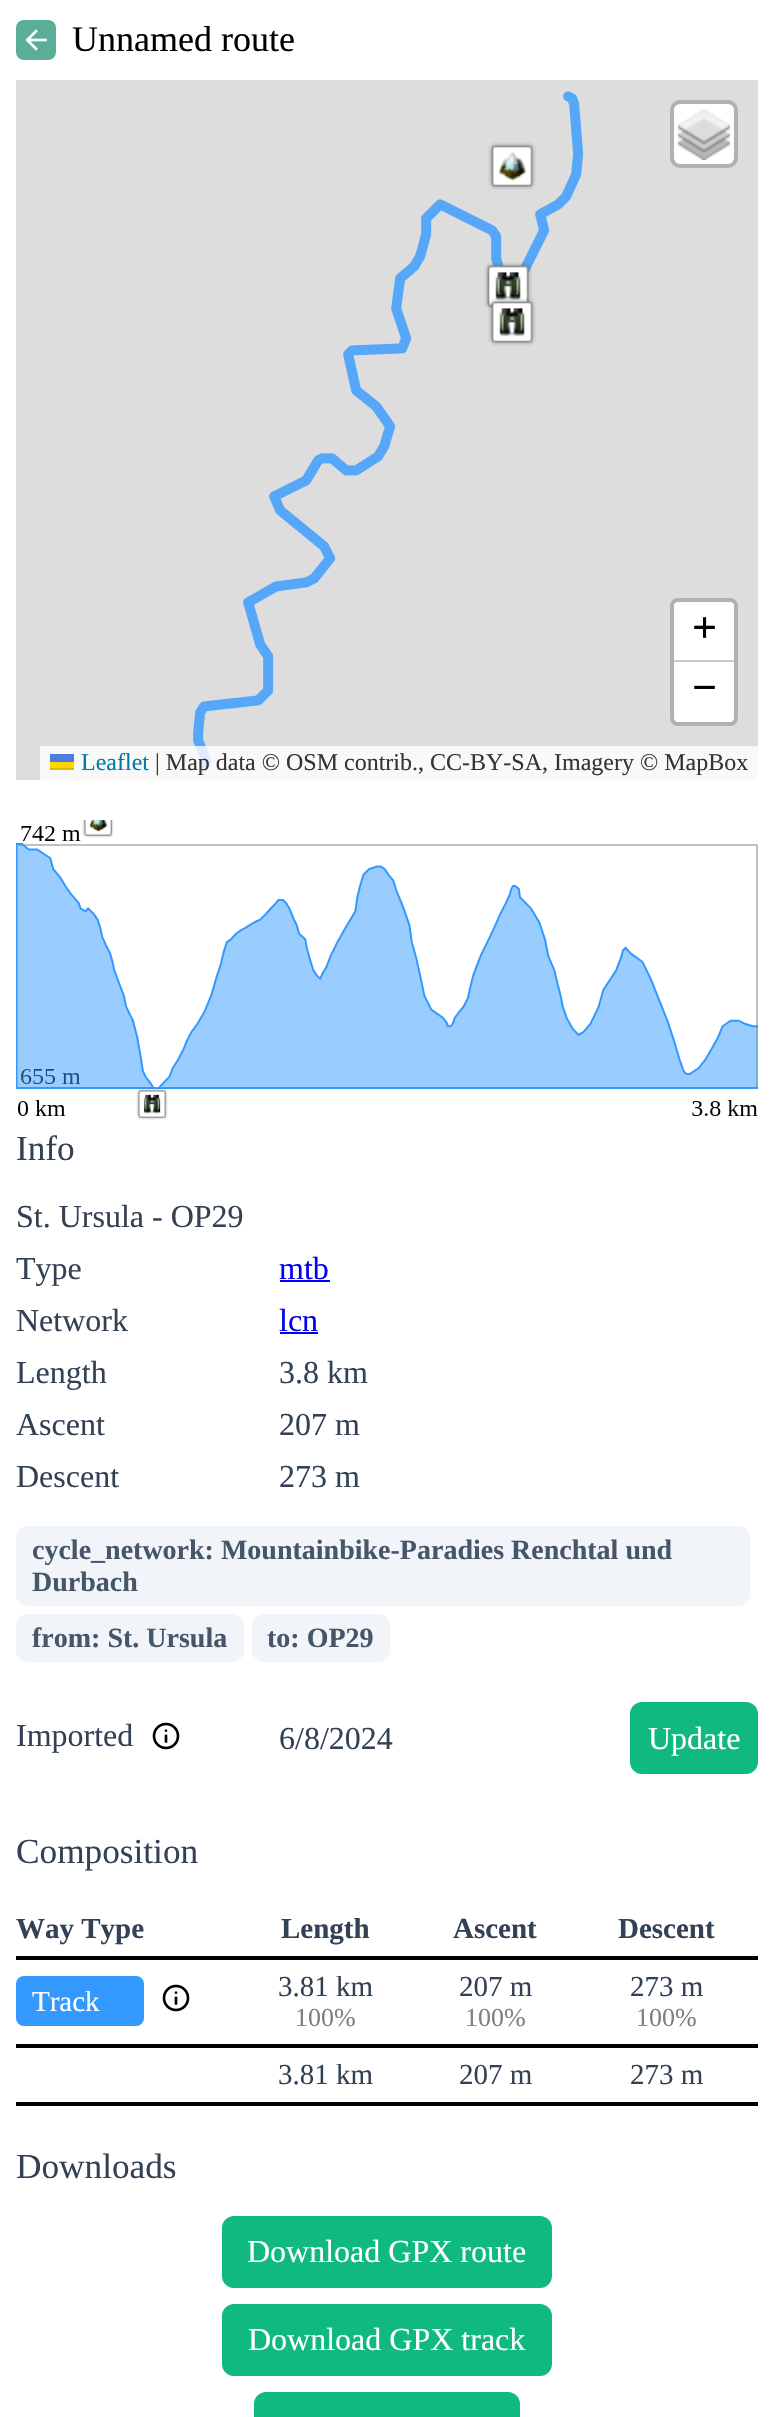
#include "include/core/SkBlurTypes.h"
#include "include/core/SkCanvas.h"
#include "include/core/SkData.h"
#include "include/core/SkFont.h"
#include "include/core/SkFontMgr.h"
#include "include/core/SkImage.h"
#include "include/core/SkMaskFilter.h"
#include "include/core/SkPaint.h"
#include "include/core/SkPathBuilder.h"
#include "include/core/SkTextBlob.h"
#include "include/effects/SkDashPathEffect.h"
#include "include/effects/SkGradientShader.h"
#include "include/utils/SkParsePath.h"

extern sk_sp<SkFontMgr> fontMgr;

static SkFont font(const char* family, int weight, float size, bool italic = false) {
    SkFontStyle style(weight, SkFontStyle::kNormal_Width,
        italic ? SkFontStyle::kItalic_Slant : SkFontStyle::kUpright_Slant);
    SkFont result(fontMgr->matchFamilyStyle(family, style), size);
    result.setSubpixel(true);
    return result;
}

static void drawLabel(SkCanvas* canvas, const char* s, float x, float y, const SkFont& font, SkColor color) {
    SkPaint ink(SkColor4f::FromColor(color));
    ink.setAntiAlias(true);
    canvas->drawString(s, x, y, font, ink);
}

static void fillRect(SkCanvas* canvas, float x, float y, float w, float h, SkColor color) {
    SkPaint ink(SkColor4f::FromColor(color));
    ink.setAntiAlias(true);
    canvas->drawRect(SkRect::MakeXYWH(x, y, w, h), ink);
}

static void fillRRect(SkCanvas* canvas, float x, float y, float w, float h, float radius, SkColor color) {
    SkPaint ink(SkColor4f::FromColor(color));
    ink.setAntiAlias(true);
    canvas->drawRoundRect(SkRect::MakeXYWH(x, y, w, h), radius, radius, ink);
}

static void drawPhoto(SkCanvas* canvas, const char* path, float x, float y, float w, float h) {
    auto image = SkImages::DeferredFromEncodedData(SkData::MakeFromFileName(path));
    canvas->drawImageRect(image, SkRect::MakeXYWH(x, y, w, h), SkSamplingOptions());
}

static SkPath parsePath(const char* data, bool evenOdd = false) {
    SkPath result = *SkParsePath::FromSVGString(data);
    if (evenOdd) result.setFillType(SkPathFillType::kEvenOdd);
    return result;
}

void draw(SkCanvas* canvas) {
    SkPaint paint;
    paint.setAntiAlias(true);
    canvas->clear(0xFFFFFFFF);
    fillRRect(canvas, 16, 20, 40, 40, 8, 0xFF5AAD97);
    drawPhoto(canvas, "assets/img1.png", 25, 29, 22, 22);
    SkFont font1 = font("Liberation Serif", 400, 36);
    drawLabel(canvas, "Unnamed route", 72, 51, font1, 0xFF000000);
    fillRect(canvas, 16, 80, 742, 700, 0xFFDDDDDD);
    drawPhoto(canvas, "assets/img2.png", 193, 91, 391, 681);
    drawPhoto(canvas, "assets/img3.png", 488, 142, 48, 48);
    drawPhoto(canvas, "assets/img4.png", 484, 262, 48, 48);
    drawPhoto(canvas, "assets/img5.png", 488, 298, 48, 48);
    fillRRect(canvas, 674, 104, 60, 60, 6, 0xFFFFFFFF);
    paint.setStroke(true);
    paint.setStrokeWidth(4);
    paint.setColor(0x33000000);
    canvas->drawRoundRect(SkRect::MakeXYWH(672, 102, 64, 64), 8, 8, paint);
    drawPhoto(canvas, "assets/img6.png", 678, 109, 52, 51);
    paint.setColor(0xFFB1B1B1);
    canvas->drawRoundRect(SkRect::MakeXYWH(672, 600, 64, 124), 6, 6, paint);
    paint.setStroke(false);
    paint.setColor(0xFFFFFFFF);
    canvas->drawPath(parsePath("M678 602H730C732 602 734 604 734 606V662H674V606C674 604 676 602 678 602Z"), paint);
    fillRect(canvas, 674, 660, 60, 2, 0xFFCCCCCC);
    SkFont font2 = font("Liberation Serif", 700, 44);
    drawLabel(canvas, "+", 692, 642, font2, 0xFF000000);
    canvas->drawPath(parsePath("M674 662H734V718C734 720 732 722 730 722H678C676 722 674 720 674 718Z"), paint);
    drawLabel(canvas, "−", 692, 702, font2, 0xFF000000);
    fillRect(canvas, 40, 746, 718, 34, 0xCCFFFFFF);
    SkFont font3 = font("Liberation Serif", 400, 24);
    drawLabel(canvas, "Leaflet", 81, 770, font3, 0xFF0078A8);
    fillRect(canvas, 50, 754, 24, 8, 0xFF4C7BE1);
    fillRect(canvas, 50, 762, 24, 6, 0xFFFFD500);
    fillRect(canvas, 50, 768, 24, 2, 0xFFE0BC00);
    drawLabel(canvas, "| Map data © OSM contrib., CC-BY-SA, Imagery © MapBox", 155, 770, font3, 0xFF333333);
    drawPhoto(canvas, "assets/img7.png", 16, 820, 742, 300);
    SkFont font4 = font("Liberation Serif", 400, 35.25f);
    drawLabel(canvas, "Info", 16, 1160, font4, 0xFF334155);
    SkFont font5 = font("Liberation Serif", 400, 32);
    drawLabel(canvas, "St. Ursula - OP29", 16, 1227, font5, 0xFF334155);
    drawLabel(canvas, "Type", 16, 1279, font5, 0xFF334155);
    drawLabel(canvas, "mtb", 279, 1279, font5, 0xFF0000EE);
    fillRect(canvas, 280, 1280, 50, 2, 0xFF0000EE);
    drawLabel(canvas, "Network", 16, 1331, font5, 0xFF334155);
    drawLabel(canvas, "lcn", 279, 1331, font5, 0xFF0000EE);
    fillRect(canvas, 280, 1332, 38, 2, 0xFF0000EE);
    drawLabel(canvas, "Length", 16, 1383, font5, 0xFF334155);
    drawLabel(canvas, "3.8 km", 279, 1383, font5, 0xFF334155);
    drawLabel(canvas, "Ascent", 16, 1435, font5, 0xFF334155);
    drawLabel(canvas, "207 m", 279, 1435, font5, 0xFF334155);
    drawLabel(canvas, "Descent", 16, 1487, font5, 0xFF334155);
    drawLabel(canvas, "273 m", 279, 1487, font5, 0xFF334155);
    fillRRect(canvas, 16, 1526, 734, 80, 12, 0xFFF1F5F9);
    SkFont font6 = font("Liberation Serif", 700, 28);
    drawLabel(canvas, "cycle_network: Mountainbike-Paradies Renchtal und", 32, 1559, font6, 0xFF475569);
    drawLabel(canvas, "Durbach", 32, 1591, font6, 0xFF475569);
    fillRRect(canvas, 16, 1614, 228, 48, 12, 0xFFF1F5F9);
    drawLabel(canvas, "from: St. Ursula", 32, 1647, font6, 0xFF475569);
    fillRRect(canvas, 252, 1614, 138, 48, 12, 0xFFF1F5F9);
    drawLabel(canvas, "to: OP29", 267, 1647, font6, 0xFF475569);
    drawLabel(canvas, "Imported", 16, 1746, font5, 0xFF334155);
    drawPhoto(canvas, "assets/img8.png", 152, 1722, 28, 28);
    drawLabel(canvas, "6/8/2024", 279, 1749, font5, 0xFF334155);
    paint.setColor(0xFF10B981);
    canvas->drawRoundRect(SkRect::MakeXYWH(631, 1703, 126, 70), 11, 11, paint);
    paint.setStroke(true);
    paint.setStrokeWidth(2);
    canvas->drawRoundRect(SkRect::MakeXYWH(631, 1703, 126, 70), 11, 11, paint);
    drawLabel(canvas, "Update", 648, 1749, font5, 0xFFFFFFFF);
    drawLabel(canvas, "Composition", 16, 1863, font4, 0xFF334155);
    SkFont font7 = font("Liberation Serif", 700, 29);
    drawLabel(canvas, "Way Type", 16, 1938, font7, 0xFF334155);
    drawLabel(canvas, "Length", 281, 1938, font7, 0xFF334155);
    drawLabel(canvas, "Ascent", 453, 1938, font7, 0xFF334155);
    fillRect(canvas, 16, 1956, 742, 4, 0xFF000000);
    drawLabel(canvas, "Descent", 618, 1938, font7, 0xFF334155);
    fillRRect(canvas, 16, 1976, 128, 50, 8, 0xFF3399FF);
    SkFont font8 = font("Liberation Serif", 400, 29);
    drawLabel(canvas, "Track", 32, 2011, font8, 0xFFFFFFFF);
    drawPhoto(canvas, "assets/img8.png", 162, 1984, 28, 28);
    drawLabel(canvas, "3.81 km", 278, 1996, font8, 0xFF334155);
    SkFont font9 = font("Liberation Serif", 400, 26);
    drawLabel(canvas, "100%", 295, 2026, font9, 0xFF808080);
    drawLabel(canvas, "207 m", 459, 1996, font8, 0xFF334155);
    drawLabel(canvas, "100%", 465, 2026, font9, 0xFF808080);
    drawLabel(canvas, "273 m", 630, 1996, font8, 0xFF334155);
    drawLabel(canvas, "100%", 636, 2026, font9, 0xFF808080);
    drawLabel(canvas, "3.81 km", 278, 2084, font8, 0xFF334155);
    drawLabel(canvas, "207 m", 459, 2084, font8, 0xFF334155);
    fillRect(canvas, 16, 2044, 742, 4, 0xFF000000);
    fillRect(canvas, 16, 2102, 742, 4, 0xFF000000);
    drawLabel(canvas, "273 m", 630, 2084, font8, 0xFF334155);
    drawLabel(canvas, "Downloads", 16, 2178, font4, 0xFF334155);
    paint.setStroke(false);
    canvas->drawRoundRect(SkRect::MakeXYWH(223, 2217, 328, 70), 11, 11, paint);
    paint.setStroke(true);
    canvas->drawRoundRect(SkRect::MakeXYWH(223, 2217, 328, 70), 11, 11, paint);
    drawLabel(canvas, "Download GPX route", 247, 2262, font5, 0xFFFFFFFF);
    paint.setStroke(false);
    canvas->drawRoundRect(SkRect::MakeXYWH(223, 2305, 328, 70), 11, 11, paint);
    paint.setStroke(true);
    canvas->drawRoundRect(SkRect::MakeXYWH(223, 2305, 328, 70), 11, 11, paint);
    drawLabel(canvas, "Download GPX track", 248, 2350, font5, 0xFFFFFFFF);
    paint.setStroke(false);
    canvas->drawRoundRect(SkRect::MakeXYWH(255, 2393, 264, 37), 11, 11, paint);
    paint.setStroke(true);
    canvas->drawRoundRect(SkRect::MakeXYWH(255, 2393, 264, 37), 11, 11, paint);
}
